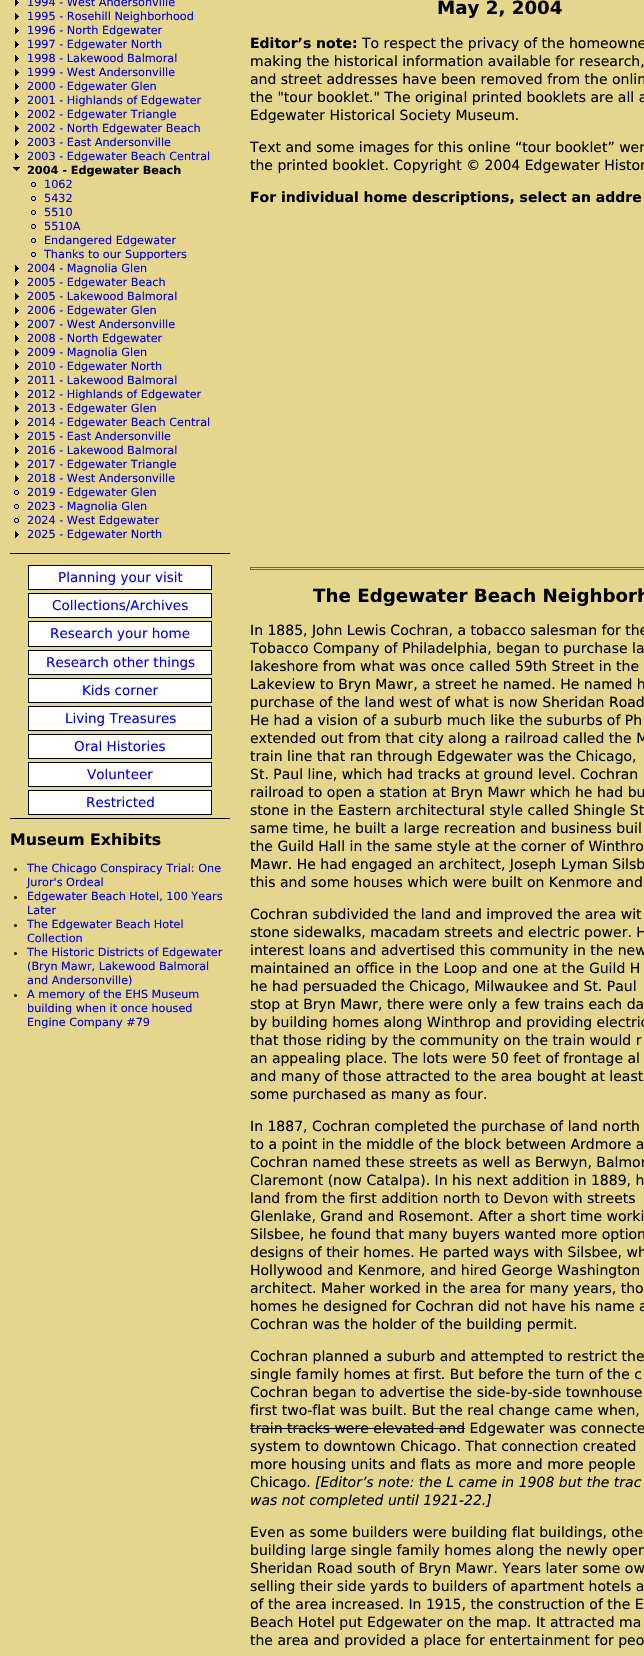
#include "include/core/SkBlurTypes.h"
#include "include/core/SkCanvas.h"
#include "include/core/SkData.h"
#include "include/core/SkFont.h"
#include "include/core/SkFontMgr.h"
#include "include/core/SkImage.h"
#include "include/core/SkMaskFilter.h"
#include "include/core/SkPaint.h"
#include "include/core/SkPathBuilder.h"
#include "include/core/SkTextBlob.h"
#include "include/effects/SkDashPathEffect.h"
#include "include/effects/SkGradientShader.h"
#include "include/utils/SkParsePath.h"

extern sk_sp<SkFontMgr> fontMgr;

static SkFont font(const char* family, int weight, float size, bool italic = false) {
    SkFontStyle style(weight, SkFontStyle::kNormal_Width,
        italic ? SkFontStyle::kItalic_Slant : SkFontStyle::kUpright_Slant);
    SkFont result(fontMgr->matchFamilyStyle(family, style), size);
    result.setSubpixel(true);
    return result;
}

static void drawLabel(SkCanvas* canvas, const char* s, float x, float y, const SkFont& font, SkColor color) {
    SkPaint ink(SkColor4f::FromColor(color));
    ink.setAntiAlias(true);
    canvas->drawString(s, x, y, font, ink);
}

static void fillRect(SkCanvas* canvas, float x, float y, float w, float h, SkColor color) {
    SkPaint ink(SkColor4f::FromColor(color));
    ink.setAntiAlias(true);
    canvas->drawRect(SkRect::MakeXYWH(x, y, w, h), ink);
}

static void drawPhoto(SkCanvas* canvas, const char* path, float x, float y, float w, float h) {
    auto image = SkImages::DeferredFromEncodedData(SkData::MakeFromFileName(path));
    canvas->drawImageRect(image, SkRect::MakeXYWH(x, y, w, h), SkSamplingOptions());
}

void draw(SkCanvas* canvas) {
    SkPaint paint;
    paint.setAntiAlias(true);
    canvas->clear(0xFFE4D68C);
    fillRect(canvas, 10, 553, 220, 1, 0xFF000000);
    drawPhoto(canvas, "assets/img1.png", 15, 0, 4, 6);
    SkFont font1 = font("DejaVu Sans", 400, 11.25f);
    drawLabel(canvas, "1994 - West Andersonville", 27, 6, font1, 0xFF0000EE);
    drawPhoto(canvas, "assets/img2.png", 15, 13, 4, 7);
    drawLabel(canvas, "1995 - Rosehill Neighborhood", 27, 20, font1, 0xFF0000EE);
    drawPhoto(canvas, "assets/img2.png", 15, 27, 4, 7);
    drawLabel(canvas, "1996 - North Edgewater", 27, 34, font1, 0xFF0000EE);
    drawPhoto(canvas, "assets/img2.png", 15, 41, 4, 7);
    drawLabel(canvas, "1997 - Edgewater North", 27, 48, font1, 0xFF0000EE);
    drawPhoto(canvas, "assets/img2.png", 15, 55, 4, 7);
    drawLabel(canvas, "1998 - Lakewood Balmoral", 27, 62, font1, 0xFF0000EE);
    drawPhoto(canvas, "assets/img2.png", 15, 69, 4, 7);
    drawLabel(canvas, "1999 - West Andersonville", 27, 76, font1, 0xFF0000EE);
    drawPhoto(canvas, "assets/img2.png", 15, 83, 4, 7);
    drawLabel(canvas, "2000 - Edgewater Glen", 27, 90, font1, 0xFF0000EE);
    drawPhoto(canvas, "assets/img2.png", 15, 97, 4, 7);
    drawLabel(canvas, "2001 - Highlands of Edgewater", 27, 104, font1, 0xFF0000EE);
    drawPhoto(canvas, "assets/img2.png", 15, 111, 4, 7);
    drawLabel(canvas, "2002 - Edgewater Triangle", 27, 118, font1, 0xFF0000EE);
    drawPhoto(canvas, "assets/img2.png", 15, 125, 4, 7);
    drawLabel(canvas, "2002 - North Edgewater Beach", 27, 132, font1, 0xFF0000EE);
    drawPhoto(canvas, "assets/img2.png", 15, 139, 4, 7);
    drawLabel(canvas, "2003 - East Andersonville", 27, 146, font1, 0xFF0000EE);
    drawPhoto(canvas, "assets/img2.png", 15, 153, 4, 7);
    drawLabel(canvas, "2003 - Edgewater Beach Central", 27, 160, font1, 0xFF0000EE);
    drawPhoto(canvas, "assets/img3.png", 13, 167, 7, 4);
    SkFont font2 = font("DejaVu Sans", 700, 11.25f);
    drawLabel(canvas, "2004 - Edgewater Beach", 27, 174, font2, 0xFF000000);
    drawPhoto(canvas, "assets/img4.png", 31, 182, 5, 5);
    drawLabel(canvas, "1062", 44, 188, font1, 0xFF0000EE);
    drawPhoto(canvas, "assets/img4.png", 31, 196, 5, 5);
    drawLabel(canvas, "5432", 44, 202, font1, 0xFF0000EE);
    drawPhoto(canvas, "assets/img4.png", 31, 210, 5, 5);
    drawLabel(canvas, "5510", 44, 216, font1, 0xFF0000EE);
    drawPhoto(canvas, "assets/img4.png", 31, 224, 5, 5);
    drawLabel(canvas, "5510A", 44, 230, font1, 0xFF0000EE);
    drawPhoto(canvas, "assets/img4.png", 31, 238, 5, 5);
    drawLabel(canvas, "Endangered Edgewater", 44, 244, font1, 0xFF0000EE);
    drawPhoto(canvas, "assets/img4.png", 31, 252, 5, 5);
    drawLabel(canvas, "Thanks to our Supporters", 44, 258, font1, 0xFF0000EE);
    drawPhoto(canvas, "assets/img2.png", 15, 265, 4, 7);
    drawLabel(canvas, "2004 - Magnolia Glen", 27, 272, font1, 0xFF0000EE);
    drawPhoto(canvas, "assets/img2.png", 15, 279, 4, 7);
    drawLabel(canvas, "2005 - Edgewater Beach", 27, 286, font1, 0xFF0000EE);
    drawPhoto(canvas, "assets/img2.png", 15, 293, 4, 7);
    drawLabel(canvas, "2005 - Lakewood Balmoral", 27, 300, font1, 0xFF0000EE);
    drawPhoto(canvas, "assets/img2.png", 15, 307, 4, 7);
    drawLabel(canvas, "2006 - Edgewater Glen", 27, 314, font1, 0xFF0000EE);
    drawPhoto(canvas, "assets/img2.png", 15, 321, 4, 7);
    drawLabel(canvas, "2007 - West Andersonville", 27, 328, font1, 0xFF0000EE);
    drawPhoto(canvas, "assets/img2.png", 15, 335, 4, 7);
    drawLabel(canvas, "2008 - North Edgewater", 27, 342, font1, 0xFF0000EE);
    drawPhoto(canvas, "assets/img2.png", 15, 349, 4, 7);
    drawLabel(canvas, "2009 - Magnolia Glen", 27, 356, font1, 0xFF0000EE);
    drawPhoto(canvas, "assets/img2.png", 15, 363, 4, 7);
    drawLabel(canvas, "2010 - Edgewater North", 27, 370, font1, 0xFF0000EE);
    drawPhoto(canvas, "assets/img2.png", 15, 377, 4, 7);
    drawLabel(canvas, "2011 - Lakewood Balmoral", 27, 384, font1, 0xFF0000EE);
    drawPhoto(canvas, "assets/img2.png", 15, 391, 4, 7);
    drawLabel(canvas, "2012 - Highlands of Edgewater", 27, 398, font1, 0xFF0000EE);
    drawPhoto(canvas, "assets/img2.png", 15, 405, 4, 7);
    drawLabel(canvas, "2013 - Edgewater Glen", 27, 412, font1, 0xFF0000EE);
    drawPhoto(canvas, "assets/img2.png", 15, 419, 4, 7);
    drawLabel(canvas, "2014 - Edgewater Beach Central", 27, 426, font1, 0xFF0000EE);
    drawPhoto(canvas, "assets/img2.png", 15, 433, 4, 7);
    drawLabel(canvas, "2015 - East Andersonville", 27, 440, font1, 0xFF0000EE);
    drawPhoto(canvas, "assets/img2.png", 15, 447, 4, 7);
    drawLabel(canvas, "2016 - Lakewood Balmoral", 27, 454, font1, 0xFF0000EE);
    drawPhoto(canvas, "assets/img2.png", 15, 461, 4, 7);
    drawLabel(canvas, "2017 - Edgewater Triangle", 27, 468, font1, 0xFF0000EE);
    drawPhoto(canvas, "assets/img2.png", 15, 475, 4, 7);
    drawLabel(canvas, "2018 - West Andersonville", 27, 482, font1, 0xFF0000EE);
    drawPhoto(canvas, "assets/img4.png", 14, 490, 5, 5);
    drawLabel(canvas, "2019 - Edgewater Glen", 27, 496, font1, 0xFF0000EE);
    drawPhoto(canvas, "assets/img4.png", 14, 504, 5, 5);
    drawLabel(canvas, "2023 - Magnolia Glen", 27, 510, font1, 0xFF0000EE);
    drawPhoto(canvas, "assets/img4.png", 14, 518, 5, 5);
    drawLabel(canvas, "2024 - West Edgewater", 27, 524, font1, 0xFF0000EE);
    drawPhoto(canvas, "assets/img2.png", 15, 531, 4, 7);
    drawLabel(canvas, "2025 - Edgewater North", 27, 538, font1, 0xFF0000EE);
    fillRect(canvas, 10, 818, 220, 1, 0xFF000000);
    paint.setColor(0xFFFFFFFF);
    canvas->drawRect(SkRect::MakeXYWH(28.5f, 565.5f, 183, 24), paint);
    paint.setStroke(true);
    paint.setStrokeWidth(1);
    paint.setColor(0xFF000000);
    canvas->drawRect(SkRect::MakeXYWH(28.5f, 565.5f, 183, 24), paint);
    SkFont font3 = font("DejaVu Sans", 400, 13.5f);
    drawLabel(canvas, "Planning your visit", 58, 582, font3, 0xFF0000EE);
    paint.setStroke(false);
    paint.setColor(0xFFFFFFFF);
    canvas->drawRect(SkRect::MakeXYWH(28.5f, 593.5f, 183, 24), paint);
    paint.setStroke(true);
    paint.setColor(0xFF000000);
    canvas->drawRect(SkRect::MakeXYWH(28.5f, 593.5f, 183, 24), paint);
    drawLabel(canvas, "Collections/Archives", 52, 610, font3, 0xFF0000EE);
    paint.setStroke(false);
    paint.setColor(0xFFFFFFFF);
    canvas->drawRect(SkRect::MakeXYWH(28.5f, 621.5f, 183, 25), paint);
    paint.setStroke(true);
    paint.setColor(0xFF000000);
    canvas->drawRect(SkRect::MakeXYWH(28.5f, 621.5f, 183, 25), paint);
    drawLabel(canvas, "Research your home", 50, 638, font3, 0xFF0000EE);
    paint.setStroke(false);
    paint.setColor(0xFFFFFFFF);
    canvas->drawRect(SkRect::MakeXYWH(28.5f, 650.5f, 183, 24), paint);
    paint.setStroke(true);
    paint.setColor(0xFF000000);
    canvas->drawRect(SkRect::MakeXYWH(28.5f, 650.5f, 183, 24), paint);
    drawLabel(canvas, "Research other things", 46, 667, font3, 0xFF0000EE);
    paint.setStroke(false);
    paint.setColor(0xFFFFFFFF);
    canvas->drawRect(SkRect::MakeXYWH(28.5f, 678.5f, 183, 24), paint);
    paint.setStroke(true);
    paint.setColor(0xFF000000);
    canvas->drawRect(SkRect::MakeXYWH(28.5f, 678.5f, 183, 24), paint);
    drawLabel(canvas, "Kids corner", 82, 695, font3, 0xFF0000EE);
    paint.setStroke(false);
    paint.setColor(0xFFFFFFFF);
    canvas->drawRect(SkRect::MakeXYWH(28.5f, 706.5f, 183, 24), paint);
    paint.setStroke(true);
    paint.setColor(0xFF000000);
    canvas->drawRect(SkRect::MakeXYWH(28.5f, 706.5f, 183, 24), paint);
    drawLabel(canvas, "Living Treasures", 65, 723, font3, 0xFF0000EE);
    paint.setStroke(false);
    paint.setColor(0xFFFFFFFF);
    canvas->drawRect(SkRect::MakeXYWH(28.5f, 734.5f, 183, 24), paint);
    paint.setStroke(true);
    paint.setColor(0xFF000000);
    canvas->drawRect(SkRect::MakeXYWH(28.5f, 734.5f, 183, 24), paint);
    drawLabel(canvas, "Oral Histories", 74, 751, font3, 0xFF0000EE);
    paint.setStroke(false);
    paint.setColor(0xFFFFFFFF);
    canvas->drawRect(SkRect::MakeXYWH(28.5f, 762.5f, 183, 24), paint);
    paint.setStroke(true);
    paint.setColor(0xFF000000);
    canvas->drawRect(SkRect::MakeXYWH(28.5f, 762.5f, 183, 24), paint);
    drawLabel(canvas, "Volunteer", 87, 779, font3, 0xFF0000EE);
    paint.setStroke(false);
    paint.setColor(0xFFFFFFFF);
    canvas->drawRect(SkRect::MakeXYWH(28.5f, 790.5f, 183, 24), paint);
    paint.setStroke(true);
    paint.setColor(0xFF000000);
    canvas->drawRect(SkRect::MakeXYWH(28.5f, 790.5f, 183, 24), paint);
    drawLabel(canvas, "Restricted", 86, 807, font3, 0xFF0000EE);
    SkFont font4 = font("DejaVu Sans", 700, 15.75f);
    drawLabel(canvas, "Museum Exhibits", 10, 845, font4, 0xFF000000);
    paint.setStroke(false);
    canvas->drawCircle(15.5f, 869.5f, 1.5f, paint);
    drawLabel(canvas, "The Chicago Conspiracy Trial: One", 27, 872, font1, 0xFF0000EE);
    drawLabel(canvas, "Juror's Ordeal", 27, 886, font1, 0xFF0000EE);
    canvas->drawCircle(15.5f, 897.5f, 1.5f, paint);
    drawLabel(canvas, "Edgewater Beach Hotel, 100 Years", 27, 900, font1, 0xFF0000EE);
    drawLabel(canvas, "Later", 27, 914, font1, 0xFF0000EE);
    canvas->drawCircle(15.5f, 925.5f, 1.5f, paint);
    drawLabel(canvas, "The Edgewater Beach Hotel", 27, 928, font1, 0xFF0000EE);
    drawLabel(canvas, "Collection", 27, 942, font1, 0xFF0000EE);
    canvas->drawCircle(15.5f, 953.5f, 1.5f, paint);
    drawLabel(canvas, "The Historic Districts of Edgewater", 27, 956, font1, 0xFF0000EE);
    drawLabel(canvas, "(Bryn Mawr, Lakewood Balmoral", 27, 970, font1, 0xFF0000EE);
    drawLabel(canvas, "and Andersonville)", 27, 984, font1, 0xFF0000EE);
    canvas->drawCircle(15.5f, 995.5f, 1.5f, paint);
    drawLabel(canvas, "A memory of the EHS Museum", 27, 998, font1, 0xFF0000EE);
    drawLabel(canvas, "building when it once housed", 27, 1012, font1, 0xFF0000EE);
    drawLabel(canvas, "Engine Company #79", 27, 1026, font1, 0xFF0000EE);
    SkFont font5 = font("DejaVu Sans", 700, 18.25f);
    drawLabel(canvas, "May 2, 2004", 437, 14, font5, 0xFF000000);
    SkFont font6 = font("DejaVu Sans", 700, 14);
    drawLabel(canvas, "Editor’s note:", 250, 48, font6, 0xFF000000);
    SkFont font7 = font("DejaVu Sans", 400, 14);
    drawLabel(canvas, "To respect the privacy of the homeowne", 362, 48, font7, 0xFF000000);
    drawLabel(canvas, "making the historical information available for research,", 250, 66, font7, 0xFF000000);
    drawLabel(canvas, "and street addresses have been removed from the onlin", 250, 84, font7, 0xFF000000);
    drawLabel(canvas, "the \"tour booklet.\" The original printed booklets are all a", 250, 102, font7, 0xFF000000);
    drawLabel(canvas, "Edgewater Historical Society Museum.", 250, 120, font7, 0xFF000000);
    drawLabel(canvas, "Text and some images for this online “tour booklet” wer", 250, 152, font7, 0xFF000000);
    drawLabel(canvas, "the printed booklet. Copyright © 2004 Edgewater Histor", 250, 170, font7, 0xFF000000);
    drawLabel(canvas, "For individual home descriptions, select an addre", 250, 202, font6, 0xFF000000);
    paint.setStroke(true);
    paint.setColor(0xFF666666);
    canvas->drawRect(SkRect::MakeXYWH(250.5f, 567.5f, 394, 2), paint);
    drawLabel(canvas, "The Edgewater Beach Neighborh", 313, 602, font5, 0xFF000000);
    drawLabel(canvas, "In 1885, John Lewis Cochran, a tobacco salesman for the", 250, 635, font7, 0xFF000000);
    drawLabel(canvas, "Tobacco Company of Philadelphia, began to purchase la", 250, 653, font7, 0xFF000000);
    drawLabel(canvas, "lakeshore from what was once called 59th Street in the", 250, 671, font7, 0xFF000000);
    drawLabel(canvas, "Lakeview to Bryn Mawr, a street he named. He named h", 250, 689, font7, 0xFF000000);
    drawLabel(canvas, "purchase of the land west of what is now Sheridan Road", 250, 707, font7, 0xFF000000);
    drawLabel(canvas, "He had a vision of a suburb much like the suburbs of Ph", 250, 725, font7, 0xFF000000);
    drawLabel(canvas, "extended out from that city along a railroad called the M", 250, 743, font7, 0xFF000000);
    drawLabel(canvas, "train line that ran through Edgewater was the Chicago,", 250, 761, font7, 0xFF000000);
    drawLabel(canvas, "St. Paul line, which had tracks at ground level. Cochran", 250, 779, font7, 0xFF000000);
    drawLabel(canvas, "railroad to open a station at Bryn Mawr which he had bu", 250, 797, font7, 0xFF000000);
    drawLabel(canvas, "stone in the Eastern architectural style called Shingle St", 250, 815, font7, 0xFF000000);
    drawLabel(canvas, "same time, he built a large recreation and business buil", 250, 833, font7, 0xFF000000);
    drawLabel(canvas, "the Guild Hall in the same style at the corner of Winthro", 250, 851, font7, 0xFF000000);
    drawLabel(canvas, "Mawr. He had engaged an architect, Joseph Lyman Silsb", 250, 869, font7, 0xFF000000);
    drawLabel(canvas, "this and some houses which were built on Kenmore and", 250, 887, font7, 0xFF000000);
    drawLabel(canvas, "Cochran subdivided the land and improved the area wit", 250, 919, font7, 0xFF000000);
    drawLabel(canvas, "stone sidewalks, macadam streets and electric power. H", 250, 937, font7, 0xFF000000);
    drawLabel(canvas, "interest loans and advertised this community in the new", 250, 955, font7, 0xFF000000);
    drawLabel(canvas, "maintained an office in the Loop and one at the Guild H", 250, 973, font7, 0xFF000000);
    drawLabel(canvas, "he had persuaded the Chicago, Milwaukee and St. Paul", 250, 991, font7, 0xFF000000);
    drawLabel(canvas, "stop at Bryn Mawr, there were only a few trains each da", 250, 1009, font7, 0xFF000000);
    drawLabel(canvas, "by building homes along Winthrop and providing electric", 250, 1027, font7, 0xFF000000);
    drawLabel(canvas, "that those riding by the community on the train would r", 250, 1045, font7, 0xFF000000);
    drawLabel(canvas, "an appealing place. The lots were 50 feet of frontage al", 250, 1063, font7, 0xFF000000);
    drawLabel(canvas, "and many of those attracted to the area bought at least", 250, 1081, font7, 0xFF000000);
    drawLabel(canvas, "some purchased as many as four.", 250, 1099, font7, 0xFF000000);
    drawLabel(canvas, "In 1887, Cochran completed the purchase of land north", 250, 1131, font7, 0xFF000000);
    drawLabel(canvas, "to a point in the middle of the block between Ardmore a", 250, 1149, font7, 0xFF000000);
    drawLabel(canvas, "Cochran named these streets as well as Berwyn, Balmor", 250, 1167, font7, 0xFF000000);
    drawLabel(canvas, "Claremont (now Catalpa). In his next addition in 1889, h", 250, 1185, font7, 0xFF000000);
    drawLabel(canvas, "land from the first addition north to Devon with streets", 250, 1203, font7, 0xFF000000);
    drawLabel(canvas, "Glenlake, Grand and Rosemont. After a short time worki", 250, 1221, font7, 0xFF000000);
    drawLabel(canvas, "Silsbee, he found that many buyers wanted more option", 250, 1239, font7, 0xFF000000);
    drawLabel(canvas, "designs of their homes. He parted ways with Silsbee, wh", 250, 1257, font7, 0xFF000000);
    drawLabel(canvas, "Hollywood and Kenmore, and hired George Washington", 250, 1275, font7, 0xFF000000);
    drawLabel(canvas, "architect. Maher worked in the area for many years, tho", 250, 1293, font7, 0xFF000000);
    drawLabel(canvas, "homes he designed for Cochran did not have his name a", 250, 1311, font7, 0xFF000000);
    drawLabel(canvas, "Cochran was the holder of the building permit.", 250, 1329, font7, 0xFF000000);
    drawLabel(canvas, "Cochran planned a suburb and attempted to restrict the", 250, 1361, font7, 0xFF000000);
    drawLabel(canvas, "single family homes at first. But before the turn of the c", 250, 1379, font7, 0xFF000000);
    drawLabel(canvas, "Cochran began to advertise the side-by-side townhouse", 250, 1397, font7, 0xFF000000);
    drawLabel(canvas, "first two-flat was built. But the real change came when,", 250, 1415, font7, 0xFF000000);
    drawLabel(canvas, "train tracks were elevated and Edgewater was connecte", 250, 1433, font7, 0xFF000000);
    fillRect(canvas, 250, 1428, 215, 1, 0xFF000000);
    drawLabel(canvas, "system to downtown Chicago. That connection created", 250, 1451, font7, 0xFF000000);
    drawLabel(canvas, "more housing units and flats as more and more people", 250, 1469, font7, 0xFF000000);
    drawLabel(canvas, "Chicago.", 250, 1487, font7, 0xFF000000);
    SkFont font8 = font("DejaVu Sans", 400, 14, true);
    drawLabel(canvas, "[Editor’s note: the L came in 1908 but the trac", 315, 1487, font8, 0xFF000000);
    drawLabel(canvas, "was not completed until 1921-22.]", 250, 1505, font8, 0xFF000000);
    drawLabel(canvas, "Even as some builders were building flat buildings, othe", 250, 1537, font7, 0xFF000000);
    drawLabel(canvas, "building large single family homes along the newly open", 250, 1555, font7, 0xFF000000);
    drawLabel(canvas, "Sheridan Road south of Bryn Mawr. Years later some ow", 250, 1573, font7, 0xFF000000);
    drawLabel(canvas, "selling their side yards to builders of apartment hotels a", 250, 1591, font7, 0xFF000000);
    drawLabel(canvas, "of the area increased. In 1915, the construction of the E", 250, 1609, font7, 0xFF000000);
    drawLabel(canvas, "Beach Hotel put Edgewater on the map. It attracted ma", 250, 1627, font7, 0xFF000000);
    drawLabel(canvas, "the area and provided a place for entertainment for peo", 250, 1645, font7, 0xFF000000);
}
